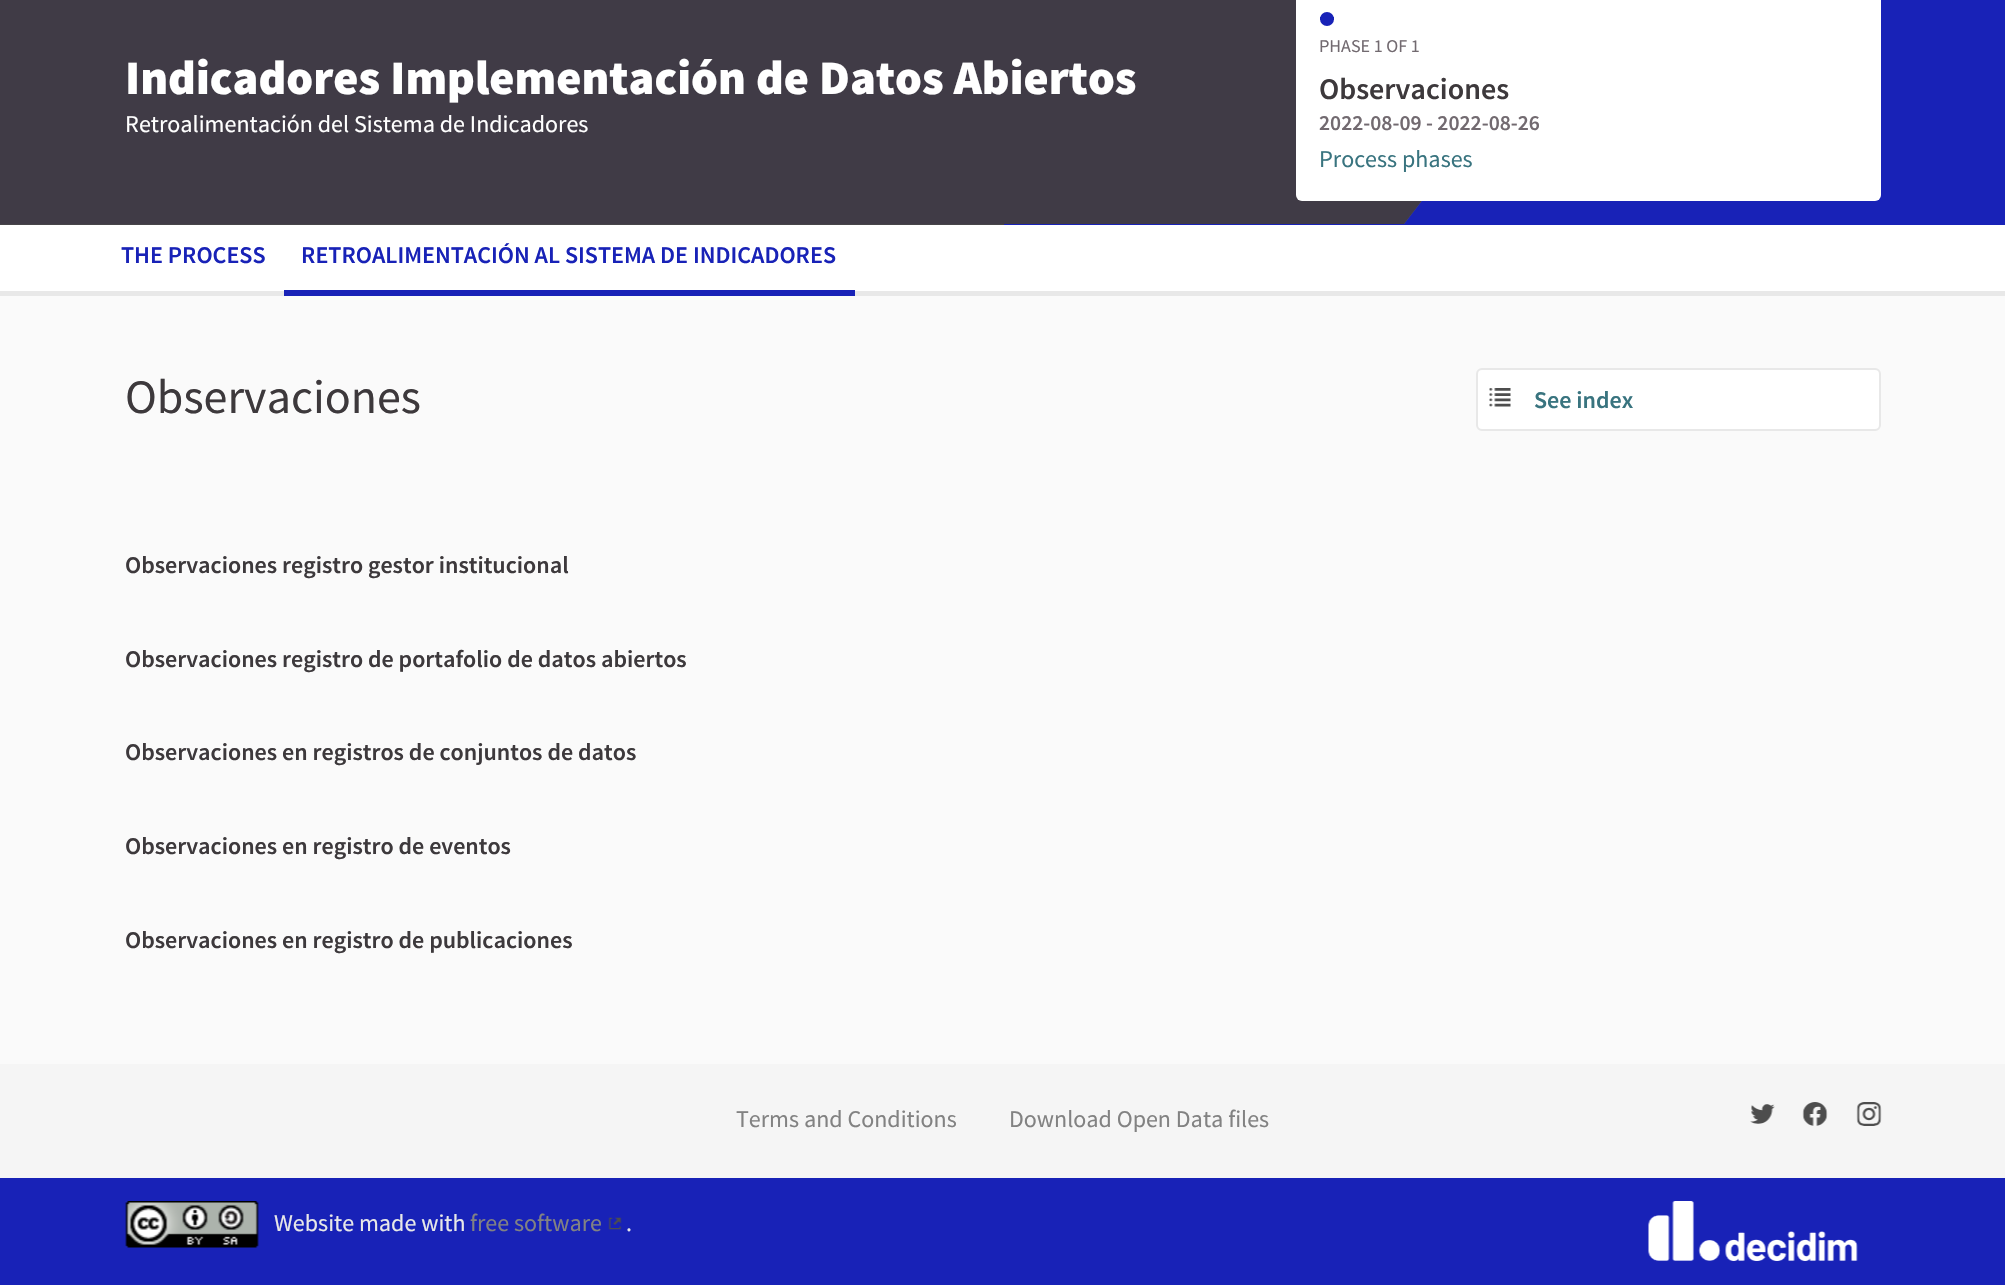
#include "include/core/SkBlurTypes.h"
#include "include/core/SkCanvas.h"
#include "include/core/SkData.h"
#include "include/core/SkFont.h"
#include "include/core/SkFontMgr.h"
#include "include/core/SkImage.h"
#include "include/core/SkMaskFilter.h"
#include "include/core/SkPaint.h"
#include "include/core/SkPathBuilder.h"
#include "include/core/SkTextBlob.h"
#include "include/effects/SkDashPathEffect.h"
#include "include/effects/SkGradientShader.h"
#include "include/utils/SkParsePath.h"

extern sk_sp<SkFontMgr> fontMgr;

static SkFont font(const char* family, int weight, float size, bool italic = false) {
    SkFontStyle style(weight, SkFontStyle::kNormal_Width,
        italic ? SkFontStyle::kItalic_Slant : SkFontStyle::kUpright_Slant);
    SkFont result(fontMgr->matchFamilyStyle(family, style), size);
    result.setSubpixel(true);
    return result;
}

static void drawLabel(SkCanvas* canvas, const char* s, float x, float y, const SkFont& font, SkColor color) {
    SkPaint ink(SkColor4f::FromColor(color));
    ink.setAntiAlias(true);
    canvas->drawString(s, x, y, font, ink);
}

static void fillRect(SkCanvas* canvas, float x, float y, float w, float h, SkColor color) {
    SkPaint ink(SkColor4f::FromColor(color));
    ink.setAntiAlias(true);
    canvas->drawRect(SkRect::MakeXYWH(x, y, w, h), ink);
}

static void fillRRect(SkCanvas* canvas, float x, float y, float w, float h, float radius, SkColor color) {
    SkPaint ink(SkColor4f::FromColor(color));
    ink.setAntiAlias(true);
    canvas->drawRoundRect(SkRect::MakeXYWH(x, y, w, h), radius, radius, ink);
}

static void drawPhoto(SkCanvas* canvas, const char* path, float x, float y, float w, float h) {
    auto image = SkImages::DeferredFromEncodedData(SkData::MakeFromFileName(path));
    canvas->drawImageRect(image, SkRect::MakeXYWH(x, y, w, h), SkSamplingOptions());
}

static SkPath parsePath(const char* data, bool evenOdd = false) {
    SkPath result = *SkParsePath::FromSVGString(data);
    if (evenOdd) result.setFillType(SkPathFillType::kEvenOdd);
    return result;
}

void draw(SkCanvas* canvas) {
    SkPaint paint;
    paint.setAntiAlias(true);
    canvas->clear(0xFFFAFAFA);
    fillRect(canvas, 0, 224, 1004, 1, 0xFF474549);
    fillRect(canvas, 1004, 0, 1001, 225, 0xFF1822B7);
    paint.setColor(0xFF786F83);
    canvas->drawPath(parsePath("M0-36V224H1404L1604-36Z"), paint);
    paint.setColor(0x991A181D);
    canvas->drawPath(parsePath("M0-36V224H1404L1604-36Z"), paint);
    SkFont font1 = font("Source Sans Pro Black", 900, 48);
    drawLabel(canvas, "Indicadores Implementación de Datos Abiertos", 125, 94, font1, 0xFFFFFFFF);
    SkFont font2 = font("Source Sans Pro", 400, 24);
    drawLabel(canvas, "Retroalimentación del Sistema de Indicadores", 125, 132, font2, 0xFFFFFFFF);
    fillRRect(canvas, 1296, -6, 585, 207, 6, 0xFFFFFFFF);
    paint.setColor(0xFF1822B7);
    canvas->drawCircle(1327, 19, 7, paint);
    fillRect(canvas, 1320, 17, 14, 3, 0xFF1822B7);
    SkFont font3 = font("Source Sans Pro", 400, 18);
    drawLabel(canvas, "PHASE 1 OF 1", 1319, 52, font3, 0xFF726A70);
    SkFont font4 = font("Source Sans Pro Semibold", 600, 30);
    drawLabel(canvas, "Observaciones", 1319, 99, font4, 0xFF3D393C);
    SkFont font5 = font("Source Sans Pro Semibold", 600, 21.6f);
    drawLabel(canvas, "2022-08-09 - 2022-08-26", 1319, 130, font5, 0xFF726A70);
    drawLabel(canvas, "Process phases", 1319, 167, font2, 0xFF39747F);
    fillRect(canvas, 0, 225, 2005, 66, 0xFFFFFFFF);
    fillRect(canvas, 0, 291, 2005, 5, 0xFFE8E8E8);
    SkFont font6 = font("Source Sans Pro Semibold", 600, 24);
    drawLabel(canvas, "THE PROCESS", 121, 263, font6, 0xFF1822B7);
    fillRect(canvas, 284, 290, 571, 6, 0xFF1822B7);
    drawLabel(canvas, "RETROALIMENTACIÓN AL SISTEMA DE INDICADORES", 301, 263, font6, 0xFF1822B7);
    SkFont font7 = font("Source Sans Pro", 400, 48);
    drawLabel(canvas, "Observaciones", 125, 413, font7, 0xFF3D393C);
    paint.setColor(0xFFFFFFFF);
    canvas->drawRoundRect(SkRect::MakeXYWH(1477, 369, 403, 61), 5, 5, paint);
    paint.setStroke(true);
    paint.setStrokeWidth(2);
    paint.setColor(0xFFE8E8E8);
    canvas->drawRoundRect(SkRect::MakeXYWH(1477, 369, 403, 61), 5, 5, paint);
    drawPhoto(canvas, "assets/img1.png", 1489, 388, 22, 19);
    drawLabel(canvas, "See index", 1534, 408, font6, 0xFF39747F);
    drawLabel(canvas, "Observaciones registro gestor institucional", 125, 573, font6, 0xFF3D393C);
    drawLabel(canvas, "Observaciones registro de portafolio de datos abiertos", 125, 667, font6, 0xFF3D393C);
    drawLabel(canvas, "Observaciones en registros de conjuntos de datos", 125, 760, font6, 0xFF3D393C);
    drawLabel(canvas, "Observaciones en registro de eventos", 125, 854, font6, 0xFF3D393C);
    drawLabel(canvas, "Observaciones en registro de publicaciones", 125, 948, font6, 0xFF3D393C);
    fillRect(canvas, 0, 1064, 2005, 114, 0xFFF5F5F5);
    drawLabel(canvas, "Terms and Conditions", 736, 1127, font2, 0xFF828282);
    drawLabel(canvas, "Download Open Data files", 1009, 1127, font2, 0xFF828282);
    drawPhoto(canvas, "assets/img2.png", 1750, 1104, 25, 20);
    drawPhoto(canvas, "assets/img3.png", 1802, 1102, 26, 24);
    drawPhoto(canvas, "assets/img4.png", 1856, 1102, 26, 24);
    fillRect(canvas, 0, 1178, 2005, 107, 0xFF1822B7);
    drawPhoto(canvas, "assets/img5.png", 125, 1201, 134, 47);
    drawLabel(canvas, "Website made with", 274, 1231, font2, 0xFFE8E8E8);
    drawLabel(canvas, "free software", 470, 1231, font2, 0xFF828282);
    drawPhoto(canvas, "assets/img6.png", 608, 1217, 14, 13);
    drawLabel(canvas, ".", 626, 1231, font2, 0xFFE8E8E8);
    drawPhoto(canvas, "assets/img7.png", 1648, 1201, 210, 60);
}
